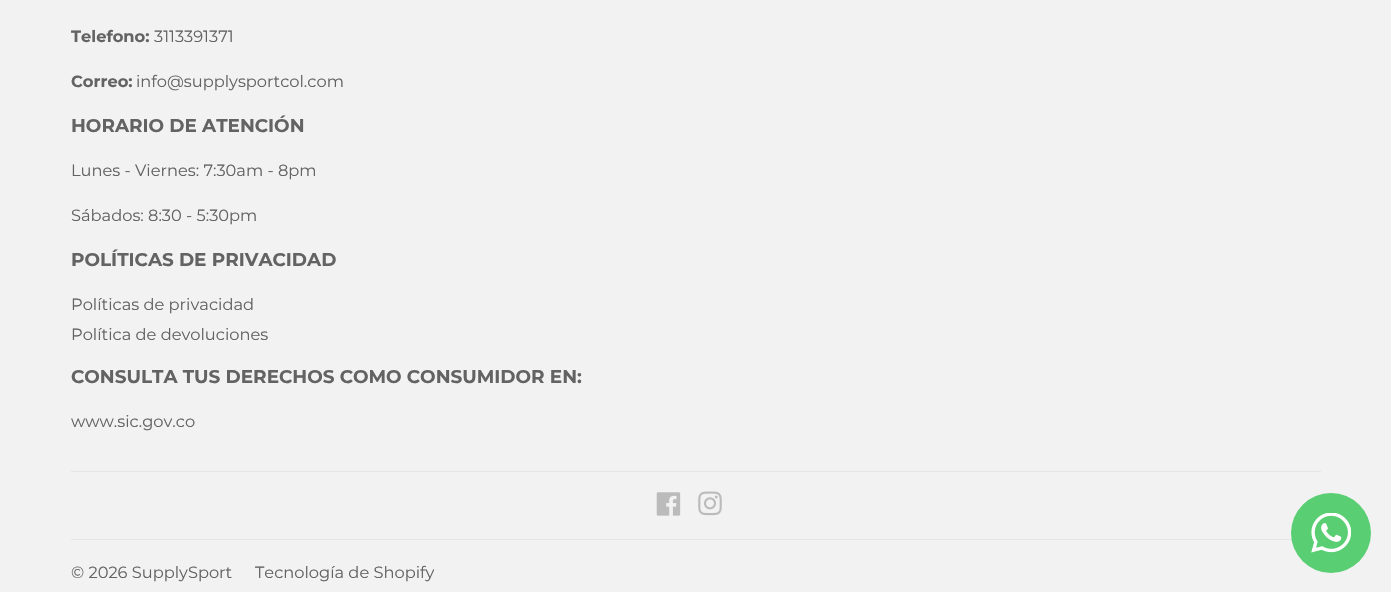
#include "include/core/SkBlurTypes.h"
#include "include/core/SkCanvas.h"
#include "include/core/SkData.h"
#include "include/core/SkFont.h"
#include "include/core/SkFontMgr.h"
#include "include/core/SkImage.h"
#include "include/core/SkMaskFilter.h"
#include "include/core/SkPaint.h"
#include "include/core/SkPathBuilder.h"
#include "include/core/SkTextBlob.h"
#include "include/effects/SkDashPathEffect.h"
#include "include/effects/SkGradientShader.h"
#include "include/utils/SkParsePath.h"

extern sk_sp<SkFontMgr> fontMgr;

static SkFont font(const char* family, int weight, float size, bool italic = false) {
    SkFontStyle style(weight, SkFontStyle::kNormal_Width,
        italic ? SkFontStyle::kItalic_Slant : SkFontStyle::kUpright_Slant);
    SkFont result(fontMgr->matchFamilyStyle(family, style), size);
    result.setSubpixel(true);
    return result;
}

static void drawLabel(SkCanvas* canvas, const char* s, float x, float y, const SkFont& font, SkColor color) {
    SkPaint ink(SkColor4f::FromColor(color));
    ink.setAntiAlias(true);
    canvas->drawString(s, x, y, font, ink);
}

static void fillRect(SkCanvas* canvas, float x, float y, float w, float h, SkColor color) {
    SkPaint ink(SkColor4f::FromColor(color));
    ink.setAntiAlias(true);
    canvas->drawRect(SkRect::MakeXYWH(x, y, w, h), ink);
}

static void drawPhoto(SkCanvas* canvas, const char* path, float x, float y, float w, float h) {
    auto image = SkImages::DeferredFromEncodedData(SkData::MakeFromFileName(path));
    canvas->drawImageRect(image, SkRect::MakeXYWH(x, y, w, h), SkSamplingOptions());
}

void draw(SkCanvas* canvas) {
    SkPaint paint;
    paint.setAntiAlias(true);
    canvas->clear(0xFFF2F2F2);
    SkFont font1 = font("Montserrat", 700, 16.25f);
    drawLabel(canvas, "Telefono:", 71, 42, font1, 0xFF636363);
    SkFont font2 = font("Montserrat", 400, 16.25f);
    drawLabel(canvas, "3113391371", 154, 42, font2, 0xFF636363);
    drawLabel(canvas, "Correo:", 71, 87, font1, 0xFF636363);
    drawLabel(canvas, "info@supplysportcol.com", 136, 87, font2, 0xFF636363);
    SkFont font3 = font("Montserrat", 700, 18.4f);
    drawLabel(canvas, "HORARIO DE ATENCIÓN", 71, 132, font3, 0xFF636363);
    drawLabel(canvas, "Lunes - Viernes: 7:30am - 8pm", 71, 176, font2, 0xFF636363);
    drawLabel(canvas, "Sábados: 8:30 - 5:30pm", 71, 221, font2, 0xFF636363);
    drawLabel(canvas, "POLÍTICAS DE PRIVACIDAD", 71, 266, font3, 0xFF636363);
    drawLabel(canvas, "Políticas de privacidad", 71, 310, font2, 0xFF636363);
    drawLabel(canvas, "Política de devoluciones", 71, 340, font2, 0xFF636363);
    drawLabel(canvas, "CONSULTA TUS DERECHOS COMO CONSUMIDOR EN:", 71, 383, font3, 0xFF636363);
    drawLabel(canvas, "www.sic.gov.co", 71, 427, font2, 0xFF636363);
    fillRect(canvas, 71, 471, 1250, 1, 0xFFE5E5E5);
    drawPhoto(canvas, "assets/img1.png", 656, 492, 25, 24);
    drawPhoto(canvas, "assets/img2.png", 698, 491, 24, 25);
    fillRect(canvas, 71, 539, 1221, 1, 0xFFE5E5E5);
    drawLabel(canvas, "© 2026 SupplySport", 71, 578, font2, 0xFF636363);
    drawLabel(canvas, "Tecnología de Shopify", 255, 578, font2, 0xFF636363);
    paint.setColor(0xFF59CE72);
    canvas->drawCircle(1331, 533, 40, paint);
    drawPhoto(canvas, "assets/img3.png", 1311, 513, 40, 40);
}
